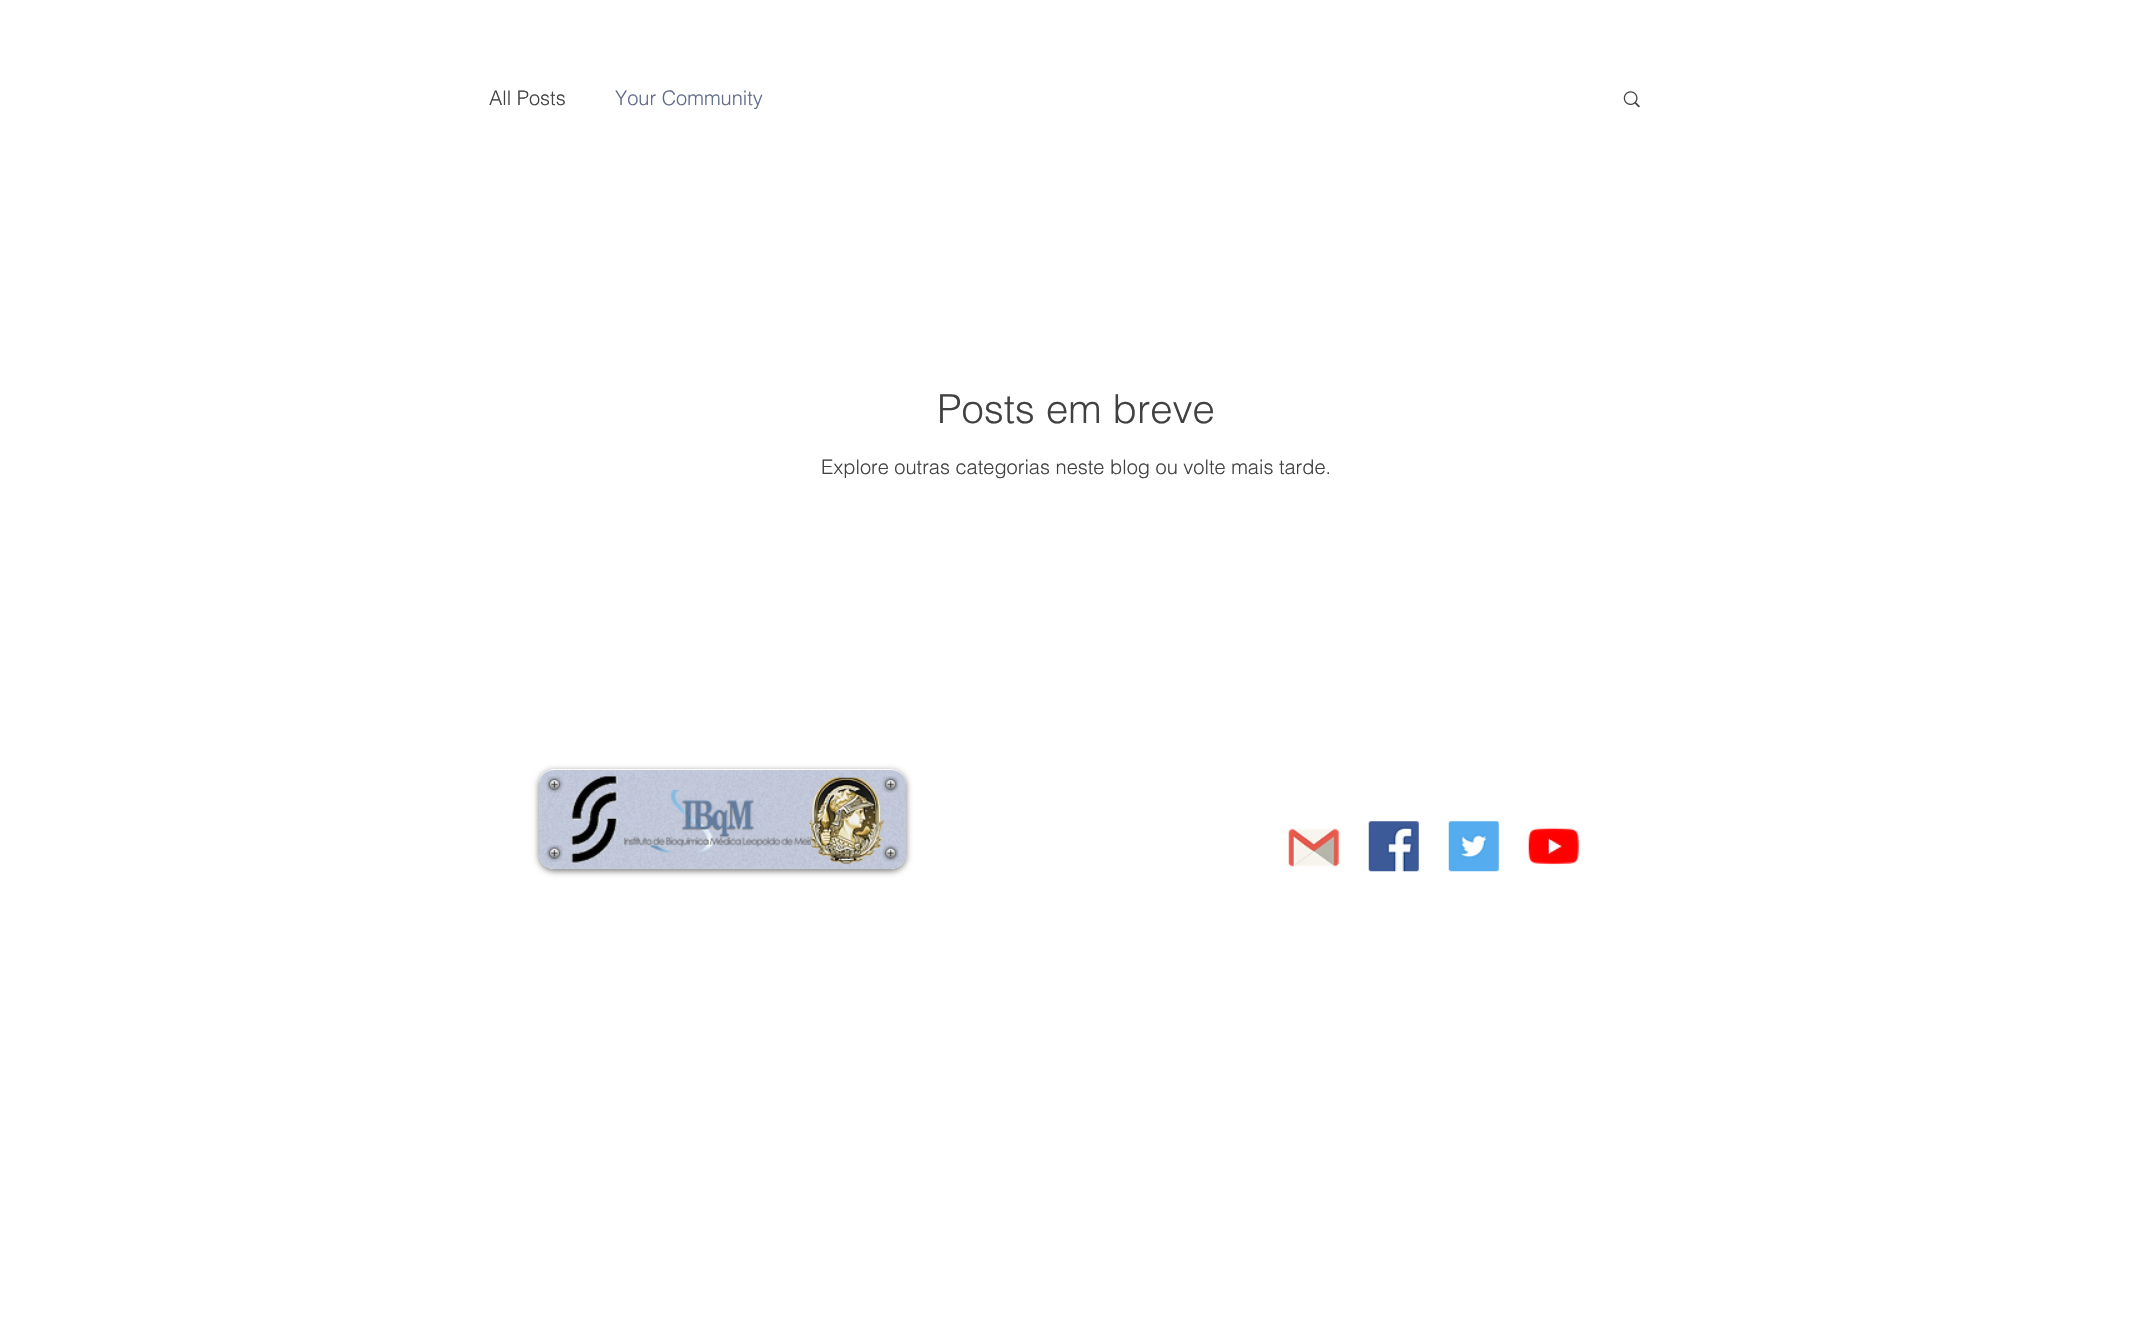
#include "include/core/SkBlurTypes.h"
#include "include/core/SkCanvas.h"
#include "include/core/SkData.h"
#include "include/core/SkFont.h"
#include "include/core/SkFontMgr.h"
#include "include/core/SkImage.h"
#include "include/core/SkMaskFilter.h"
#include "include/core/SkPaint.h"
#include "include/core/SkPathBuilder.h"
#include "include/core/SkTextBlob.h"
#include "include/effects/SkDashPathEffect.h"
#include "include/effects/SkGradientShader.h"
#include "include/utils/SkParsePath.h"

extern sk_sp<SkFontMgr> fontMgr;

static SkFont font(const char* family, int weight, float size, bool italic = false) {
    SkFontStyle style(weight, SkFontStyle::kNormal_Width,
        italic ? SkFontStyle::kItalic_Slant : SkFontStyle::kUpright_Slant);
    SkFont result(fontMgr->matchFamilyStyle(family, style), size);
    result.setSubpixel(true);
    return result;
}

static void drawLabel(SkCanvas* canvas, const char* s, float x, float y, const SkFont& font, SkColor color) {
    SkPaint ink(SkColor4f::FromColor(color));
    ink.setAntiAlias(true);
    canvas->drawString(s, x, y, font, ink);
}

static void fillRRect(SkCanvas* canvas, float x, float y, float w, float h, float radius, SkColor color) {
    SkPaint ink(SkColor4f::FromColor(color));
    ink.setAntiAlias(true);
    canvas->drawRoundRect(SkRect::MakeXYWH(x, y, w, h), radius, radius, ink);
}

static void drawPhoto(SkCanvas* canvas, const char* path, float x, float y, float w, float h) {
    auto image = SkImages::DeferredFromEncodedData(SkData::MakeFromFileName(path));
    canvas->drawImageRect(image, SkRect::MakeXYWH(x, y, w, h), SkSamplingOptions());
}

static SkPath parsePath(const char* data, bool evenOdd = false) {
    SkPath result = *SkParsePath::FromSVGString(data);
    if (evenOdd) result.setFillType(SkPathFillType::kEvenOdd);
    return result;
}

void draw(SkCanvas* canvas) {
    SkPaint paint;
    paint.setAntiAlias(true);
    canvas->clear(0xFFFFFFFF);
    SkFont font1 = font("helvetica", 300, 20);
    drawLabel(canvas, "All Posts", 489, 105, font1, 0xFF414141);
    drawLabel(canvas, "Your Community", 615, 105, font1, 0xFF616B87);
    drawPhoto(canvas, "assets/img1.png", 1623, 91, 17, 17);
    SkFont font2 = font("helvetica", 300, 40);
    drawLabel(canvas, "Posts em breve", 937, 423, font2, 0xFF414141);
    drawLabel(canvas, "Explore outras categorias neste blog ou volte mais tarde.", 821, 474, font1, 0xFF414141);
    canvas->save();
    canvas->clipPath(parsePath("M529 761H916V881H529ZM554 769H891C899.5 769 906 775.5 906 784V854C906 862.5 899.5 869 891 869H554C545.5 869 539 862.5 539 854V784C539 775.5 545.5 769 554 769Z", true), true);
    paint.setColor(0x87000000);
    paint.setMaskFilter(SkMaskFilter::MakeBlur(kNormal_SkBlurStyle, 3));
    canvas->drawRoundRect(SkRect::MakeXYWH(539, 771, 367, 100), 15, 15, paint);
    paint.setMaskFilter(nullptr);
    canvas->restore();
    fillRRect(canvas, 539, 769, 367, 100, 15, 0xCCB8C1D7);
    drawPhoto(canvas, "assets/img2.png", 539, 769, 367, 100);
    paint.setColor(0xEBFFFFFF);
    canvas->drawPath(parsePath("M554 770H891C900 770 906 777 906 785V784C906 776 899 769 891 769H554C546 769 539 776 539 784V785C539 777 545 770 554 770Z"), paint);
    drawPhoto(canvas, "assets/img3.png", 546, 776, 17, 17);
    drawPhoto(canvas, "assets/img4.png", 571, 776, 47, 88);
    drawPhoto(canvas, "assets/img5.png", 624, 790, 188, 63);
    drawPhoto(canvas, "assets/img7.png", 882, 776, 17, 17);
    drawPhoto(canvas, "assets/img9.png", 882, 845, 17, 17);
    drawPhoto(canvas, "assets/img6.png", 808, 777, 76, 87);
    drawPhoto(canvas, "assets/img8.png", 546, 845, 17, 17);
    drawPhoto(canvas, "assets/img10.png", 1288, 828, 51, 39);
    drawPhoto(canvas, "assets/img11.png", 1368, 821, 51, 51);
    drawPhoto(canvas, "assets/img12.png", 1448, 821, 51, 51);
    drawPhoto(canvas, "assets/img13.png", 1528, 827, 51, 38);
}
